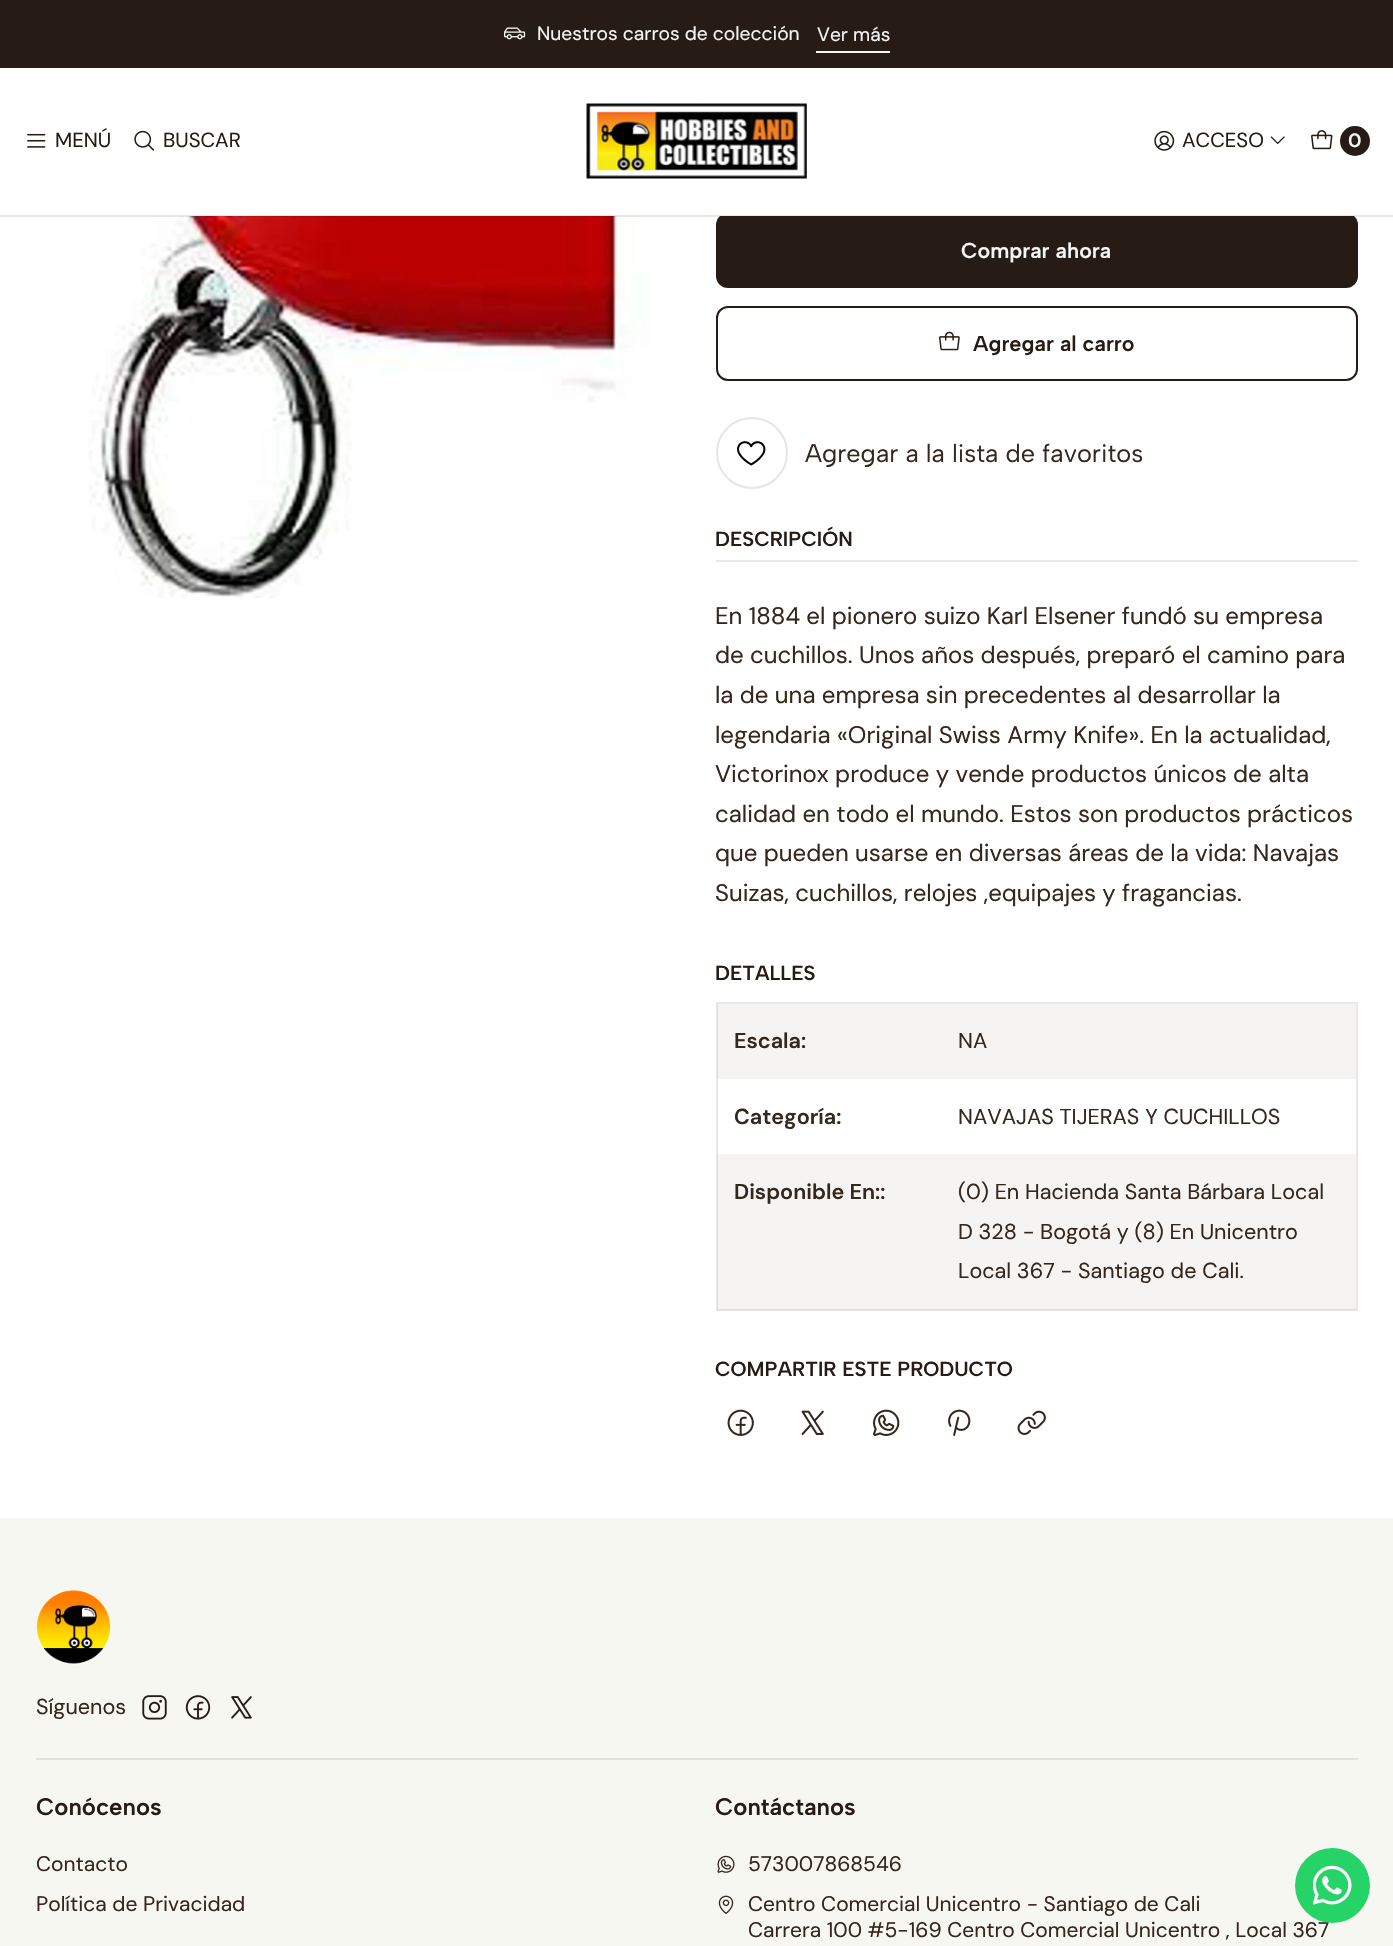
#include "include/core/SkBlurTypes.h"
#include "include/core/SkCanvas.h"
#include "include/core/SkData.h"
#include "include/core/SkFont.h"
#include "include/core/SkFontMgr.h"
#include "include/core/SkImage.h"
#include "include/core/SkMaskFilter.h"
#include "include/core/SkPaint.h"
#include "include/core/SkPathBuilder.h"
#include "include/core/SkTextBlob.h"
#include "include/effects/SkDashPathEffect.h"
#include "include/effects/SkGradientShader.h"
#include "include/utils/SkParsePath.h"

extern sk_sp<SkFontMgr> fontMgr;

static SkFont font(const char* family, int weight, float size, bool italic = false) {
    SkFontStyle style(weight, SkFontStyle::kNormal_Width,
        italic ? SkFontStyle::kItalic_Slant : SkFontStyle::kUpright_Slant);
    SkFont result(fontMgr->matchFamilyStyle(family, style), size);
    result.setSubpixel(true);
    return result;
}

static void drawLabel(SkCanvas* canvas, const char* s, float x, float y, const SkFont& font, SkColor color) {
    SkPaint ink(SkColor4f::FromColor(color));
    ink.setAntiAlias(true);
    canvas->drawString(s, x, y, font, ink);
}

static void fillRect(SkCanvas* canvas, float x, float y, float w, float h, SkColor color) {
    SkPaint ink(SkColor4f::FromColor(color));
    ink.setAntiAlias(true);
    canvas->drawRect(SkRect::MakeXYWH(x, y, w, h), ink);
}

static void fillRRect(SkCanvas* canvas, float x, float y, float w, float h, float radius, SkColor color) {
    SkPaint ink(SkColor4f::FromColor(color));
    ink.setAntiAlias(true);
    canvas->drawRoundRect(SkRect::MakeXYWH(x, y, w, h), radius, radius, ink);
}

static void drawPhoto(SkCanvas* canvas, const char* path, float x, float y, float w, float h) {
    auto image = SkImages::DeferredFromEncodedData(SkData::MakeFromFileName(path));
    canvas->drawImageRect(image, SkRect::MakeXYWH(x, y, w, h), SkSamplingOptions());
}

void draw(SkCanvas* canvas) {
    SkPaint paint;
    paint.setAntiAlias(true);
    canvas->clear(0xFFFFFFFF);
    fillRect(canvas, 0, 0, 1393, 68, 0xFF261C15);
    drawPhoto(canvas, "assets/img1.png", 504, 27, 22, 13);
    SkFont font1 = font("DM Sans", 400, 19.25f);
    drawLabel(canvas, "Nuestros carros de colección", 537, 40, font1, 0xFFF5F5F5);
    fillRect(canvas, 816, 51, 74, 2, 0xFFF7F7F2);
    drawLabel(canvas, "Ver más", 817, 41, font1, 0xFFF5F5F5);
    fillRRect(canvas, 716, 213, 642, 75, 12, 0xFF261C15);
    fillRect(canvas, 720, 213, 634, 3, 0xFFFFFFFF);
    drawPhoto(canvas, "assets/img8.png", 88, 216, 561, 382);
    fillRect(canvas, 0, 215, 1393, 2, 0x1A261C15);
    drawPhoto(canvas, "assets/img2.png", 27, 133, 19, 15);
    SkFont font2 = font("DM Sans", 400, 20.4f);
    drawLabel(canvas, "MENÚ", 55, 147, font2, 0xFF261C15);
    drawPhoto(canvas, "assets/img3.png", 134, 130, 21, 21);
    drawLabel(canvas, "BUSCAR", 163, 147, font2, 0xFF261C15);
    drawPhoto(canvas, "assets/img4.png", 586, 103, 221, 76);
    drawPhoto(canvas, "assets/img5.png", 1154, 130, 21, 21);
    drawLabel(canvas, "ACCESO", 1182, 147, font2, 0xFF261C15);
    drawPhoto(canvas, "assets/img6.png", 1270, 136, 15, 8);
    drawPhoto(canvas, "assets/img7.png", 1311, 130, 22, 20);
    paint.setColor(0xFF261C15);
    canvas->drawCircle(1355, 141, 15, paint);
    SkFont font3 = font("DM Sans", 600, 19.25f);
    drawLabel(canvas, "0", 1348, 147, font3, 0xFFF5F5F5);
    SkFont font4 = font("Albert Sans", 600, 21.6f);
    drawLabel(canvas, "Comprar ahora", 961, 258, font4, 0xFFF5F5F5);
    paint.setStroke(true);
    paint.setStrokeWidth(2);
    canvas->drawRoundRect(SkRect::MakeXYWH(717, 307, 640, 73), 11, 11, paint);
    drawPhoto(canvas, "assets/img9.png", 939, 331, 21, 20);
    drawLabel(canvas, "Agregar al carro", 973, 351, font4, 0xFF261C15);
    paint.setColor(0xFFE6E6E6);
    canvas->drawCircle(752, 453, 35, paint);
    drawPhoto(canvas, "assets/img10.png", 737, 441, 29, 25);
    SkFont font5 = font("Albert Sans", 400, 25.25f);
    drawLabel(canvas, "Agregar a la lista de favoritos", 805, 462, font5, 0xFF35271D);
    fillRect(canvas, 716, 560, 642, 2, 0xFFE9E8E8);
    SkFont font6 = font("Albert Sans", 600, 20.4f);
    drawLabel(canvas, "DESCRIPCIÓN", 715, 546, font6, 0xFF261C15);
    SkFont font7 = font("DM Sans", 400, 24);
    drawLabel(canvas, "En 1884 el pionero suizo Karl Elsener fundó su empresa", 715, 624, font7, 0xFF35271D);
    drawLabel(canvas, "de cuchillos. Unos años después, preparó el camino para", 715, 663, font7, 0xFF35271D);
    drawLabel(canvas, "la de una empresa sin precedentes al desarrollar la", 715, 703, font7, 0xFF35271D);
    drawLabel(canvas, "legendaria «Original Swiss Army Knife». En la actualidad,", 715, 743, font7, 0xFF35271D);
    drawLabel(canvas, "Victorinox produce y vende productos únicos de alta", 715, 782, font7, 0xFF35271D);
    drawLabel(canvas, "calidad en todo el mundo. Estos son productos prácticos", 715, 822, font7, 0xFF35271D);
    drawLabel(canvas, "que pueden usarse en diversas áreas de la vida: Navajas", 715, 861, font7, 0xFF35271D);
    drawLabel(canvas, "Suizas, cuchillos, relojes ,equipajes y fragancias.", 715, 901, font7, 0xFF35271D);
    drawLabel(canvas, "DETALLES", 715, 980, font6, 0xFF261C15);
    paint.setColor(0xFFE9E8E8);
    canvas->drawRect(SkRect::MakeXYWH(717, 1003, 640, 307), paint);
    fillRect(canvas, 717, 1004, 639, 75, 0x0D35271D);
    SkFont font8 = font("DM Sans", 600, 21.6f);
    drawLabel(canvas, "Escala:", 734, 1048, font8, 0xFF35271D);
    SkFont font9 = font("DM Sans", 400, 21.6f);
    drawLabel(canvas, "NA", 958, 1048, font9, 0xFF35271D);
    drawLabel(canvas, "Categoría:", 734, 1124, font8, 0xFF35271D);
    drawLabel(canvas, "NAVAJAS TIJERAS Y CUCHILLOS", 958, 1124, font9, 0xFF35271D);
    fillRect(canvas, 717, 1154, 639, 156, 0x0D35271D);
    drawLabel(canvas, "Disponible En::", 734, 1199, font8, 0xFF35271D);
    drawLabel(canvas, "(0) En Hacienda Santa Bárbara Local", 958, 1199, font9, 0xFF35271D);
    drawLabel(canvas, "D 328 - Bogotá y (8) En Unicentro", 958, 1239, font9, 0xFF35271D);
    drawLabel(canvas, "Local 367 - Santiago de Cali.", 958, 1278, font9, 0xFF35271D);
    drawLabel(canvas, "COMPARTIR ESTE PRODUCTO", 715, 1376, font6, 0xFF261C15);
    drawPhoto(canvas, "assets/img11.png", 727, 1409, 27, 27);
    drawPhoto(canvas, "assets/img12.png", 801, 1410, 23, 25);
    drawPhoto(canvas, "assets/img13.png", 873, 1409, 27, 27);
    drawPhoto(canvas, "assets/img14.png", 948, 1409, 23, 27);
    drawPhoto(canvas, "assets/img15.png", 1017, 1410, 29, 25);
    fillRect(canvas, 0, 1518, 1393, 428, 0xFFF7F7F2);
    drawPhoto(canvas, "assets/img16.png", 36, 1589, 75, 76);
    drawLabel(canvas, "Síguenos", 36, 1714, font9, 0xFF35271D);
    drawPhoto(canvas, "assets/img17.png", 142, 1695, 25, 25);
    drawPhoto(canvas, "assets/img18.png", 185, 1695, 26, 25);
    drawPhoto(canvas, "assets/img19.png", 231, 1696, 21, 23);
    fillRect(canvas, 36, 1758, 1322, 2, 0xFFE2E1DC);
    SkFont font10 = font("Albert Sans", 600, 24);
    drawLabel(canvas, "Conócenos", 36, 1815, font10, 0xFF261C15);
    SkFont font11 = font("DM Sans", 400, 21);
    drawLabel(canvas, "Contacto", 36, 1871, font11, 0xFF35271D);
    drawLabel(canvas, "Política de Privacidad", 36, 1911, font11, 0xFF35271D);
    drawLabel(canvas, "Contáctanos", 715, 1815, font10, 0xFF261C15);
    drawPhoto(canvas, "assets/img20.png", 717, 1855, 18, 18);
    drawLabel(canvas, "573007868546", 748, 1871, font11, 0xFF35271D);
    drawPhoto(canvas, "assets/img21.png", 718, 1895, 16, 19);
    drawLabel(canvas, "Centro Comercial Unicentro - Santiago de Cali", 748, 1911, font11, 0xFF35271D);
    drawLabel(canvas, "Carrera 100 #5-169 Centro Comercial Unicentro , Local 367", 748, 1937, font11, 0xFF35271D);
    paint.setStroke(false);
    paint.setColor(0xFF25D366);
    canvas->drawCircle(1332.5f, 1885.5f, 37.5f, paint);
    drawPhoto(canvas, "assets/img22.png", 1313, 1865, 39, 40);
}
